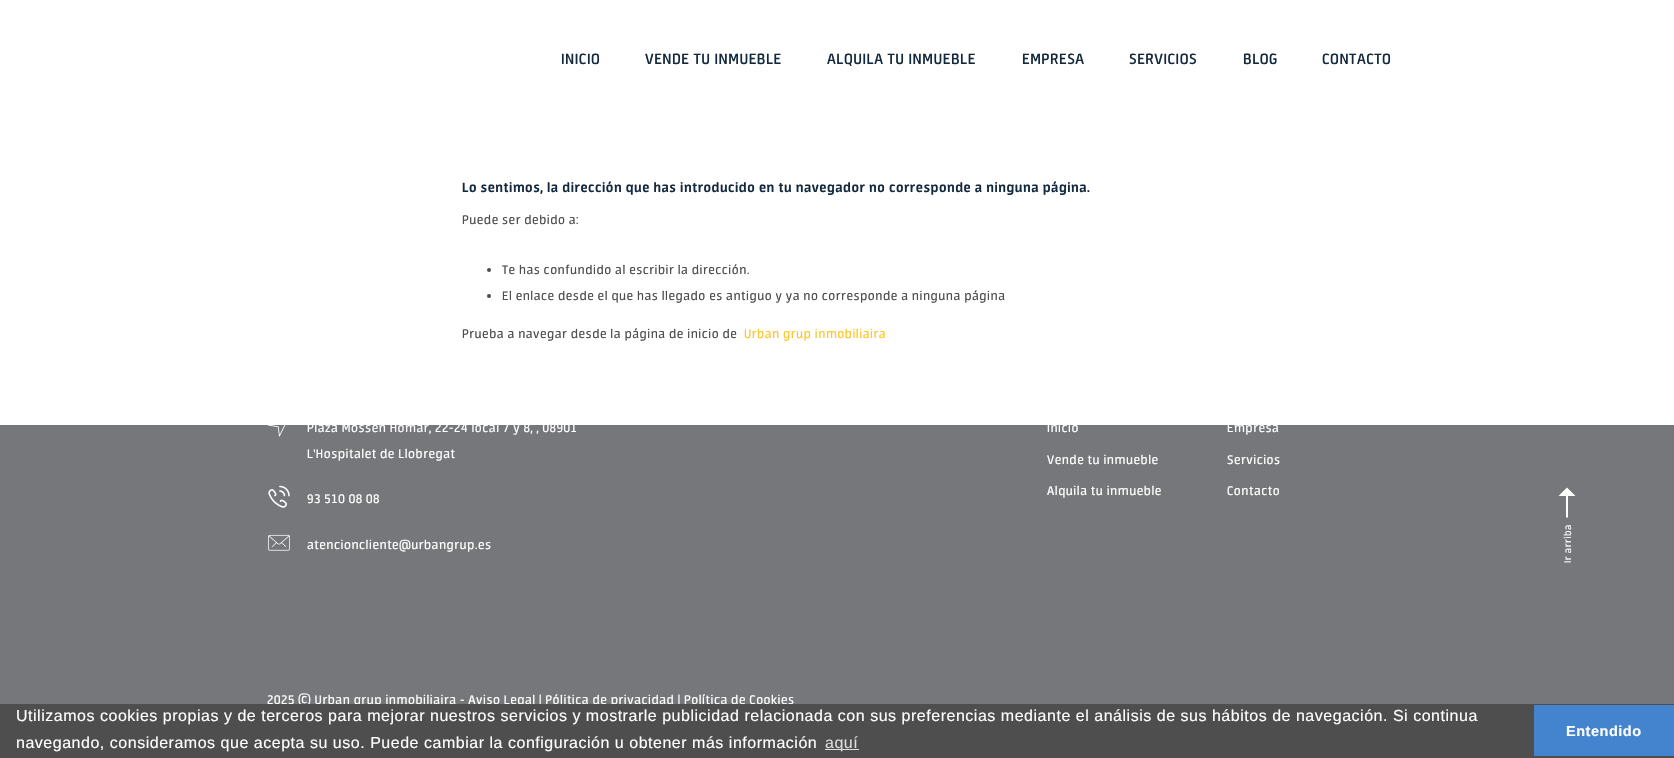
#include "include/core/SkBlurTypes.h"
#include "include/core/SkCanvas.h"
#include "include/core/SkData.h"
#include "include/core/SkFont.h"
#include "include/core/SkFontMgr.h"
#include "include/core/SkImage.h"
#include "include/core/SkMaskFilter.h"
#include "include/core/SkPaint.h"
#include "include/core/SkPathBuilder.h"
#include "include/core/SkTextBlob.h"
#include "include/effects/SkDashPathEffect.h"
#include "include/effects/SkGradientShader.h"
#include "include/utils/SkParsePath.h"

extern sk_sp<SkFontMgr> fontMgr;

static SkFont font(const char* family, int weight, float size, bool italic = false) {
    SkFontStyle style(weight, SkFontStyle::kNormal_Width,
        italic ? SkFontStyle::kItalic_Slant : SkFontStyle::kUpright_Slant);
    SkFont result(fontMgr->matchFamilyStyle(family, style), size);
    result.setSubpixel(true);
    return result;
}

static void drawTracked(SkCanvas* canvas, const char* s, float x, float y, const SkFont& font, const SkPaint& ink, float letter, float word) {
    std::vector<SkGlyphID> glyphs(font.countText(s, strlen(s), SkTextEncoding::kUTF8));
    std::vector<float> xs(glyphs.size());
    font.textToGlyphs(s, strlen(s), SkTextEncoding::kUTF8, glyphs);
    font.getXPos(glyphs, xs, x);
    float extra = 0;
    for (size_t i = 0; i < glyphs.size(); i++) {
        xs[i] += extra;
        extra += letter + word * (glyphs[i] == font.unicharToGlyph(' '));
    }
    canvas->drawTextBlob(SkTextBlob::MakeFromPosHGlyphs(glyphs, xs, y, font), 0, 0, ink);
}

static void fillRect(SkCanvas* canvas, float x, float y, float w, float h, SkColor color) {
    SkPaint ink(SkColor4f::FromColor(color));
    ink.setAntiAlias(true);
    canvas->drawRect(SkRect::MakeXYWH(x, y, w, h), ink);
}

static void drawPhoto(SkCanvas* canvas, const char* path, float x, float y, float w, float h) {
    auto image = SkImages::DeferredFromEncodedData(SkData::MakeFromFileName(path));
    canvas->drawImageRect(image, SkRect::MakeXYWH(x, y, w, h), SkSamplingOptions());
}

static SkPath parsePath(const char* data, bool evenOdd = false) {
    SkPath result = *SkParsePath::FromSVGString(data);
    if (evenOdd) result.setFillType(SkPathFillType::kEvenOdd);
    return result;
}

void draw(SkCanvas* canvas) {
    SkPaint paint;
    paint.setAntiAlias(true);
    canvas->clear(0xFF76777B);
    fillRect(canvas, 0, 0, 1674, 425, 0xFFFFFFFF);
    SkFont font1 = font("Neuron", 600, 16.75f);
    paint.setColor(0xFF13293D);
    drawTracked(canvas, "INICIO", 561, 64, font1, paint, 0.52f, 0);
    drawTracked(canvas, "VENDE TU INMUEBLE", 645, 64, font1, paint, 0.52f, 0);
    drawTracked(canvas, "ALQUILA TU INMUEBLE", 827, 64, font1, paint, 0.52f, 0);
    drawTracked(canvas, "EMPRESA", 1022, 64, font1, paint, 0.52f, 0);
    drawTracked(canvas, "SERVICIOS", 1129, 64, font1, paint, 0.52f, 0);
    drawTracked(canvas, "BLOG", 1243, 64, font1, paint, 0.52f, 0);
    drawTracked(canvas, "CONTACTO", 1322, 64, font1, paint, 0.52f, 0);
    SkFont font2 = font("Neuron", 700, 15);
    drawTracked(canvas, "Lo sentimos, la dirección que has introducido en tu navegador no corresponde a ninguna página.", 462, 192, font2, paint, 0.52f, 0);
    SkFont font3 = font("Neuron", 400, 14);
    paint.setColor(0xFF4D4D4D);
    drawTracked(canvas, "Puede ser debido a:", 462, 224, font3, paint, 0.52f, 0);
    canvas->drawCircle(489, 270, 2, paint);
    drawTracked(canvas, "Te has confundido al escribir la dirección.", 502, 274, font3, paint, 0.52f, 0);
    canvas->drawCircle(489, 296, 2, paint);
    drawTracked(canvas, "El enlace desde el que has llegado es antiguo y ya no corresponde a ninguna página", 502, 300, font3, paint, 0.52f, 0);
    drawTracked(canvas, "Prueba a navegar desde la página de inicio de", 462, 338, font3, paint, 0.52f, 0);
    paint.setColor(0xFFFFC629);
    drawTracked(canvas, "Urban grup inmobiliaira", 744, 338, font3, paint, 0.52f, 0);
    drawPhoto(canvas, "assets/img1.png", 268, 425, 18, 12);
    paint.setColor(0xFFFFFFFF);
    drawTracked(canvas, "Plaza Mossen Homar, 22-24 local 7 y 8, , 08901", 307, 432, font3, paint, 0.52f, 0);
    drawTracked(canvas, "L'Hospitalet de Llobregat", 307, 458, font3, paint, 0.52f, 0);
    drawPhoto(canvas, "assets/img2.png", 268, 485, 22, 23);
    drawTracked(canvas, "93 510 08 08", 307, 503, font3, paint, 0.52f, 0);
    drawPhoto(canvas, "assets/img3.png", 268, 534, 22, 17);
    drawTracked(canvas, "atencioncliente@urbangrup.es", 307, 549, font3, paint, 0.52f, 0);
    drawTracked(canvas, "Inicio", 1047, 432, font3, paint, 0.52f, 0);
    drawTracked(canvas, "Vende tu inmueble", 1047, 464, font3, paint, 0.52f, 0);
    drawTracked(canvas, "Alquila tu inmueble", 1047, 495, font3, paint, 0.52f, 0);
    drawTracked(canvas, "Empresa", 1227, 432, font3, paint, 0.52f, 0);
    drawTracked(canvas, "Servicios", 1227, 464, font3, paint, 0.52f, 0);
    drawTracked(canvas, "Contacto", 1227, 495, font3, paint, 0.52f, 0);
    canvas->drawPath(parsePath("M1567 487.5L1575.5 496H1568V517.5H1566V496H1558.5Z"), paint);
    SkFont font4 = font("Neuron", 400, 11);
    canvas->save();
    canvas->rotate(-90, 1571, 563);
    drawTracked(canvas, "Ir arriba", 1571, 563, font4, paint, 0.52f, 0);
    canvas->restore();
    drawTracked(canvas, "2025 © Urban grup inmobiliaira - Aviso Legal | Pólitica de privacidad | Política de Cookies", 267, 704, font3, paint, 0.52f, 0);
    fillRect(canvas, 0, 704, 1674, 54, 0xFF4E4E4E);
    SkFont font5 = font("Liberation Sans", 400, 16);
    drawTracked(canvas, "Utilizamos cookies propias y de terceros para mejorar nuestros servicios y mostrarle publicidad relacionada con sus preferencias mediante el análisis de sus hábitos de navegación. Si continua", 16, 721, font5, paint, 0.52f, 0);
    drawTracked(canvas, "navegando, consideramos que acepta su uso. Puede cambiar la configuración u obtener más información", 16, 748, font5, paint, 0.52f, 0);
    fillRect(canvas, 825, 749, 34, 1, 0xFFDCDCDC);
    paint.setColor(0xFFDCDCDC);
    drawTracked(canvas, "aquí", 825, 748, font5, paint, 0.52f, 0);
    fillRect(canvas, 1534, 705, 140, 51, 0xFF4484CE);
    SkFont font6 = font("Liberation Sans", 700, 14.5f);
    paint.setColor(0xFFFFFFFF);
    drawTracked(canvas, "Entendido", 1566, 736, font6, paint, 0.52f, 0);
}
